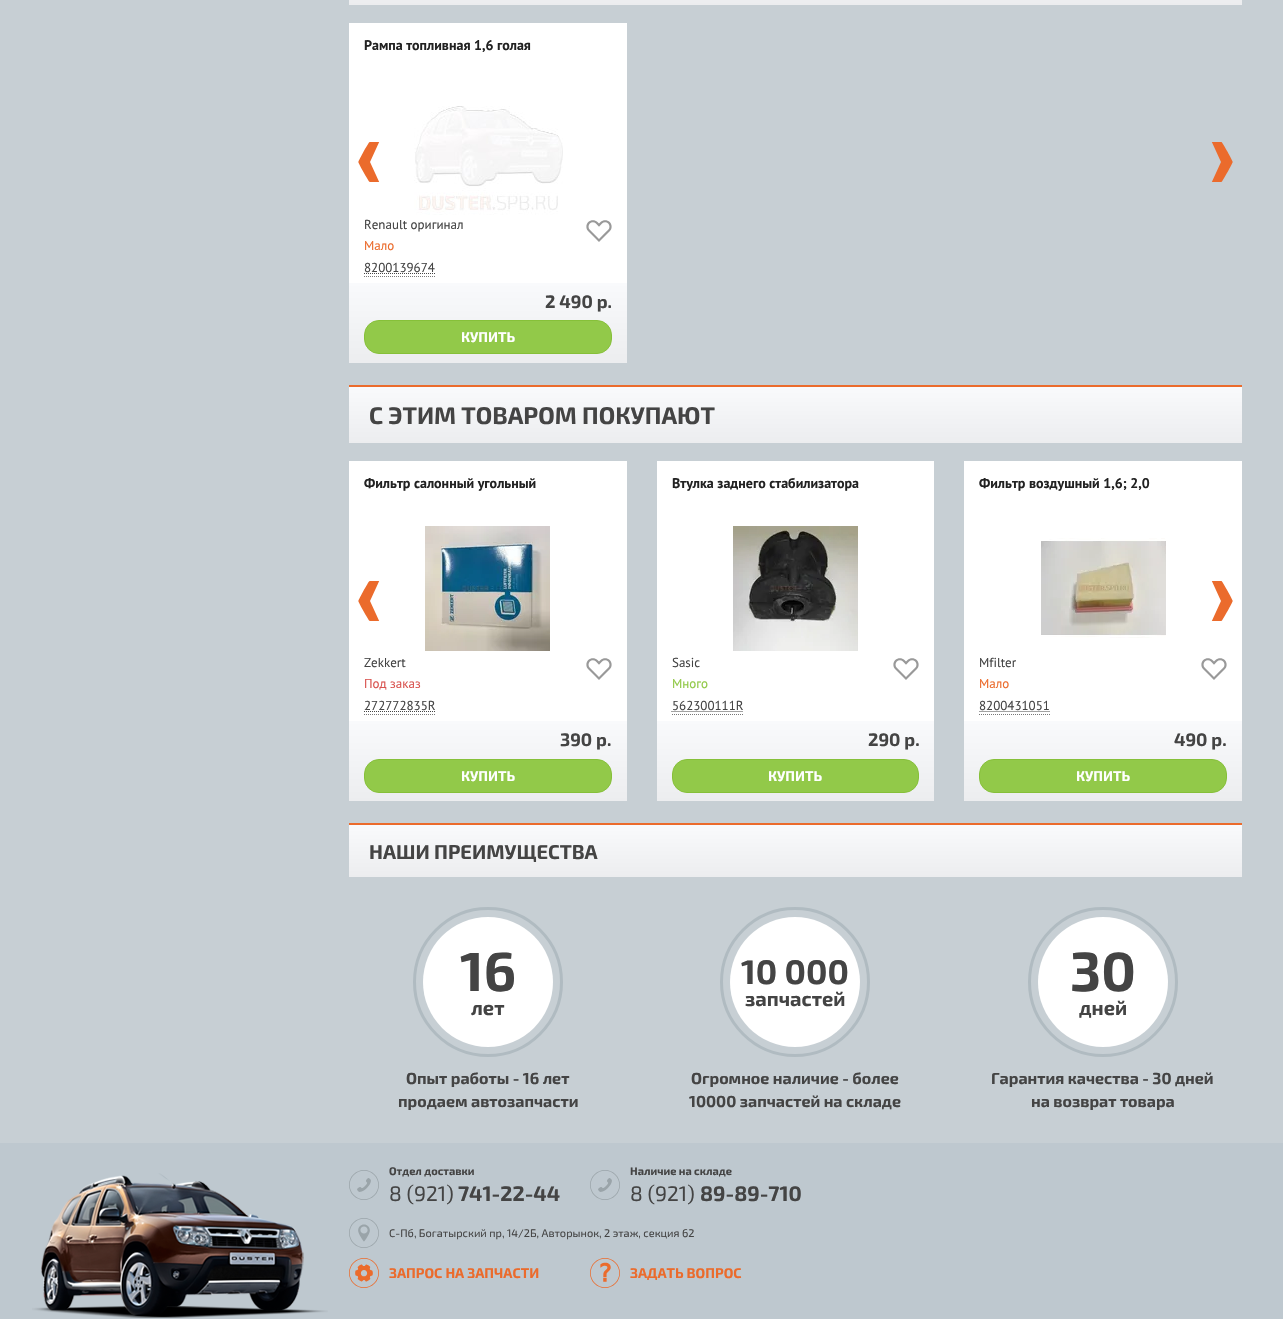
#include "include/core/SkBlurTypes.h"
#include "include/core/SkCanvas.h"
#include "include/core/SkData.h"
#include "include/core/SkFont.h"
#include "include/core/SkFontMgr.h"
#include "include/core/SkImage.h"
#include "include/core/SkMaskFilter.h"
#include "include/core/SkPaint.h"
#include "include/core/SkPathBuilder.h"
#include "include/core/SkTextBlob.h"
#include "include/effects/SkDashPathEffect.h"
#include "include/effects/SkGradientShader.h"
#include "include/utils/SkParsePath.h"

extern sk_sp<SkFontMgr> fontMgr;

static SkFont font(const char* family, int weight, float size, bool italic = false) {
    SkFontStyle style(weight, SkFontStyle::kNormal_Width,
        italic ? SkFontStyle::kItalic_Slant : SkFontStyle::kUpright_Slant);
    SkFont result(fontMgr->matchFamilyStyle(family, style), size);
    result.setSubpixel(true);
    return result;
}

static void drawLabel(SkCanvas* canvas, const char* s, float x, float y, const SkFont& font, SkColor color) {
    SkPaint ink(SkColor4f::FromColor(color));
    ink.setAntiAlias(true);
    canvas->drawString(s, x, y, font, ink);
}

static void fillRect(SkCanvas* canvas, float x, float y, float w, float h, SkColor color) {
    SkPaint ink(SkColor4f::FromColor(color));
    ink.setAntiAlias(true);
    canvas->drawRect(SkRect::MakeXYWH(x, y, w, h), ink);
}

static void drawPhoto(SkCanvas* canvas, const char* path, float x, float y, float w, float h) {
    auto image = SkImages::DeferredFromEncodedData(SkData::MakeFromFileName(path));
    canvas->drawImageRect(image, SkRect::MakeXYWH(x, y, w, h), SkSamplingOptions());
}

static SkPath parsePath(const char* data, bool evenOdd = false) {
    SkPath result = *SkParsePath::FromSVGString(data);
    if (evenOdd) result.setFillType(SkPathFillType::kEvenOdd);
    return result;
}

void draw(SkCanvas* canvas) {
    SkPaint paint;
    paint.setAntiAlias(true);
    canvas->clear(0xFFC7CFD4);
    {
        const SkColor colors[] = {0xFFF9FAFC, 0xFFECEDEF};
        const float stops[] = {0, 1};
        const SkPoint ends[] = {{796, -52}, {796, 5}};
        paint.setShader(SkGradientShader::MakeLinear(ends, colors, stops, 2, SkTileMode::kClamp));
        paint.setAlpha(255);
    }
    canvas->drawRect(SkRect::MakeXYWH(349, 0, 893, 5), paint);
    fillRect(canvas, 349, 23, 278, 260, 0xFFFFFFFF);
    SkFont font1 = font("PT Sans", 700, 14);
    drawLabel(canvas, "Рампа топливная 1,6 голая", 364, 50, font1, 0xFF222222);
    drawPhoto(canvas, "assets/img1.png", 414, 106, 149, 109);
    SkFont font2 = font("PT Sans", 400, 13);
    drawLabel(canvas, "Renault оригинал", 364, 229, font2, 0xFF444444);
    drawPhoto(canvas, "assets/img2.png", 586, 220, 26, 22);
    drawLabel(canvas, "Мало", 364, 250, font2, 0xFFEB6B2C);
    drawLabel(canvas, "8200139674", 364, 272, font2, 0xFF444444);
    paint.setStroke(true);
    paint.setStrokeWidth(1);
    paint.setShader(nullptr);
    paint.setColor(0xFF777777);
    paint.setPathEffect(SkDashPathEffect::Make({{1, 1}}, 0));
    canvas->drawPath(parsePath("M364 276.5H435"), paint);
    paint.setPathEffect(nullptr);
    paint.setColor(0xFF444444);
    paint.setPathEffect(SkDashPathEffect::Make({{1, 1}}, 0));
    canvas->drawPath(parsePath("M364 273.5H435"), paint);
    paint.setPathEffect(nullptr);
    paint.setStroke(false);
    {
        const SkColor colors[] = {0xFFF9FAFC, 0xFFECEDEF};
        const float stops[] = {0, 1};
        const SkPoint ends[] = {{488, 283}, {488, 363}};
        paint.setShader(SkGradientShader::MakeLinear(ends, colors, stops, 2, SkTileMode::kClamp));
        paint.setAlpha(255);
    }
    canvas->drawRect(SkRect::MakeXYWH(349, 283, 278, 80), paint);
    SkFont font3 = font("Exo 2", 700, 18);
    drawLabel(canvas, "2 490 р.", 545, 308, font3, 0xFF444444);
    paint.setShader(nullptr);
    paint.setColor(0xFF92C949);
    canvas->drawRoundRect(SkRect::MakeXYWH(364.5f, 320.5f, 247, 33), 14.5f, 14.5f, paint);
    paint.setStroke(true);
    paint.setColor(0xFF86C039);
    canvas->drawRoundRect(SkRect::MakeXYWH(364.5f, 320.5f, 247, 33), 14.5f, 14.5f, paint);
    SkFont font4 = font("Exo 2", 700, 14);
    drawLabel(canvas, "КУПИТЬ", 461, 342, font4, 0xFFFFFFFF);
    drawPhoto(canvas, "assets/img3.png", 358, 142, 22, 40);
    drawPhoto(canvas, "assets/img4.png", 1211, 142, 22, 40);
    paint.setStroke(false);
    {
        const SkColor colors[] = {0xFFF9FAFC, 0xFFECEDEF};
        const float stops[] = {0, 1};
        const SkPoint ends[] = {{796, 387}, {796, 443}};
        paint.setShader(SkGradientShader::MakeLinear(ends, colors, stops, 2, SkTileMode::kClamp));
        paint.setAlpha(255);
    }
    canvas->drawRect(SkRect::MakeXYWH(349, 387, 893, 56), paint);
    fillRect(canvas, 349, 385, 893, 2, 0xFFEB6B2C);
    SkFont font5 = font("Exo 2", 700, 24);
    drawLabel(canvas, "С ЭТИМ ТОВАРОМ ПОКУПАЮТ", 369, 424, font5, 0xFF444444);
    fillRect(canvas, 349, 461, 278, 260, 0xFFFFFFFF);
    drawLabel(canvas, "Фильтр салонный угольный", 364, 488, font1, 0xFF222222);
    drawPhoto(canvas, "assets/img5.png", 425, 526, 125, 125);
    drawLabel(canvas, "Zekkert", 364, 667, font2, 0xFF444444);
    drawPhoto(canvas, "assets/img2.png", 586, 658, 26, 22);
    drawLabel(canvas, "Под заказ", 364, 688, font2, 0xFFD9534F);
    drawLabel(canvas, "272772835R", 364, 710, font2, 0xFF444444);
    paint.setStroke(true);
    paint.setShader(nullptr);
    paint.setColor(0xFF777777);
    paint.setPathEffect(SkDashPathEffect::Make({{1, 1}}, 0));
    canvas->drawPath(parsePath("M364 714.5H436"), paint);
    paint.setPathEffect(nullptr);
    paint.setColor(0xFF444444);
    paint.setPathEffect(SkDashPathEffect::Make({{1, 1}}, 0));
    canvas->drawPath(parsePath("M364 711.5H435.5"), paint);
    paint.setPathEffect(nullptr);
    paint.setStroke(false);
    {
        const SkColor colors[] = {0xFFF9FAFC, 0xFFECEDEF};
        const float stops[] = {0, 1};
        const SkPoint ends[] = {{488, 721}, {488, 801}};
        paint.setShader(SkGradientShader::MakeLinear(ends, colors, stops, 2, SkTileMode::kClamp));
        paint.setAlpha(255);
    }
    canvas->drawRect(SkRect::MakeXYWH(349, 721, 278, 80), paint);
    drawLabel(canvas, "390 р.", 560, 746, font3, 0xFF444444);
    paint.setShader(nullptr);
    paint.setColor(0xFF92C949);
    canvas->drawRoundRect(SkRect::MakeXYWH(364.5f, 759.5f, 247, 33), 14.5f, 14.5f, paint);
    paint.setStroke(true);
    paint.setColor(0xFF86C039);
    canvas->drawRoundRect(SkRect::MakeXYWH(364.5f, 759.5f, 247, 33), 14.5f, 14.5f, paint);
    drawLabel(canvas, "КУПИТЬ", 461, 781, font4, 0xFFFFFFFF);
    fillRect(canvas, 657, 461, 277, 260, 0xFFFFFFFF);
    drawLabel(canvas, "Втулка заднего стабилизатора", 672, 488, font1, 0xFF222222);
    drawPhoto(canvas, "assets/img6.png", 733, 526, 125, 125);
    drawLabel(canvas, "Sasic", 672, 667, font2, 0xFF444444);
    drawPhoto(canvas, "assets/img2.png", 893, 658, 26, 22);
    drawLabel(canvas, "Много", 672, 688, font2, 0xFF92C949);
    drawLabel(canvas, "562300111R", 672, 710, font2, 0xFF444444);
    paint.setColor(0xFF777777);
    paint.setPathEffect(SkDashPathEffect::Make({{1, 1}}, 0));
    canvas->drawPath(parsePath("M672 714.5H743"), paint);
    paint.setPathEffect(nullptr);
    paint.setColor(0xFF444444);
    paint.setPathEffect(SkDashPathEffect::Make({{1, 1}}, 0));
    canvas->drawPath(parsePath("M671.5 711.5H743"), paint);
    paint.setPathEffect(nullptr);
    paint.setStroke(false);
    {
        const SkColor colors[] = {0xFFF9FAFC, 0xFFECEDEF};
        const float stops[] = {0, 1};
        const SkPoint ends[] = {{796, 721}, {796, 801}};
        paint.setShader(SkGradientShader::MakeLinear(ends, colors, stops, 2, SkTileMode::kClamp));
        paint.setAlpha(255);
    }
    canvas->drawRect(SkRect::MakeXYWH(657, 721, 277, 80), paint);
    drawLabel(canvas, "290 р.", 868, 746, font3, 0xFF444444);
    paint.setShader(nullptr);
    paint.setColor(0xFF92C949);
    canvas->drawRoundRect(SkRect::MakeXYWH(672.5f, 759.5f, 246, 33), 14.5f, 14.5f, paint);
    paint.setStroke(true);
    paint.setColor(0xFF86C039);
    canvas->drawRoundRect(SkRect::MakeXYWH(672.5f, 759.5f, 246, 33), 14.5f, 14.5f, paint);
    drawLabel(canvas, "КУПИТЬ", 768, 781, font4, 0xFFFFFFFF);
    fillRect(canvas, 964, 461, 278, 260, 0xFFFFFFFF);
    drawLabel(canvas, "Фильтр воздушный 1,6; 2,0", 979, 488, font1, 0xFF222222);
    drawPhoto(canvas, "assets/img7.png", 1041, 538, 125, 100);
    drawLabel(canvas, "Mfilter", 979, 667, font2, 0xFF444444);
    drawPhoto(canvas, "assets/img2.png", 1201, 658, 26, 22);
    drawLabel(canvas, "Мало", 979, 688, font2, 0xFFEB6B2C);
    drawLabel(canvas, "8200431051", 979, 710, font2, 0xFF444444);
    paint.setColor(0xFF777777);
    paint.setPathEffect(SkDashPathEffect::Make({{1, 1}}, 0));
    canvas->drawPath(parsePath("M979 714.5H1050"), paint);
    paint.setPathEffect(nullptr);
    paint.setColor(0xFF444444);
    paint.setPathEffect(SkDashPathEffect::Make({{1, 1}}, 0));
    canvas->drawPath(parsePath("M979.5 711.5H1050"), paint);
    paint.setPathEffect(nullptr);
    paint.setStroke(false);
    {
        const SkColor colors[] = {0xFFF9FAFC, 0xFFECEDEF};
        const float stops[] = {0, 1};
        const SkPoint ends[] = {{1103, 721}, {1103, 801}};
        paint.setShader(SkGradientShader::MakeLinear(ends, colors, stops, 2, SkTileMode::kClamp));
        paint.setAlpha(255);
    }
    canvas->drawRect(SkRect::MakeXYWH(964, 721, 278, 80), paint);
    drawLabel(canvas, "490 р.", 1174, 746, font3, 0xFF444444);
    paint.setShader(nullptr);
    paint.setColor(0xFF92C949);
    canvas->drawRoundRect(SkRect::MakeXYWH(979.5f, 759.5f, 247, 33), 14.5f, 14.5f, paint);
    paint.setStroke(true);
    paint.setColor(0xFF86C039);
    canvas->drawRoundRect(SkRect::MakeXYWH(979.5f, 759.5f, 247, 33), 14.5f, 14.5f, paint);
    drawLabel(canvas, "КУПИТЬ", 1076, 781, font4, 0xFFFFFFFF);
    drawPhoto(canvas, "assets/img8.png", 358, 581, 22, 40);
    drawPhoto(canvas, "assets/img9.png", 1211, 581, 22, 40);
    paint.setStroke(false);
    {
        const SkColor colors[] = {0xFFF9FAFC, 0xFFECEDEF};
        const float stops[] = {0, 1};
        const SkPoint ends[] = {{796, 825}, {796, 877}};
        paint.setShader(SkGradientShader::MakeLinear(ends, colors, stops, 2, SkTileMode::kClamp));
        paint.setAlpha(255);
    }
    canvas->drawRect(SkRect::MakeXYWH(349, 825, 893, 52), paint);
    fillRect(canvas, 349, 823, 893, 2, 0xFFEB6B2C);
    SkFont font6 = font("Exo 2", 700, 20);
    drawLabel(canvas, "НАШИ ПРЕИМУЩЕСТВА", 369, 859, font6, 0xFF444444);
    paint.setShader(nullptr);
    paint.setColor(0xFFFFFFFF);
    canvas->drawCircle(488, 982, 65, paint);
    SkFont font7 = font("Exo 2", 700, 55);
    drawLabel(canvas, "16", 460, 991, font7, 0xFF444444);
    drawLabel(canvas, "лет", 471, 1015, font6, 0xFF444444);
    paint.setStroke(true);
    paint.setStrokeWidth(3);
    paint.setColor(0xFFB0BBC1);
    canvas->drawCircle(488, 982, 73.5f, paint);
    SkFont font8 = font("Exo 2", 700, 16);
    drawLabel(canvas, "Опыт работы - 16 лет", 406, 1084, font8, 0xFF444444);
    drawLabel(canvas, "продаем автозапчасти", 398, 1107, font8, 0xFF444444);
    paint.setStroke(false);
    paint.setColor(0xFFFFFFFF);
    canvas->drawCircle(795, 982, 65, paint);
    SkFont font9 = font("Exo 2", 700, 34);
    drawLabel(canvas, "10 000", 741, 984, font9, 0xFF444444);
    drawLabel(canvas, "запчастей", 745, 1006, font6, 0xFF444444);
    paint.setStroke(true);
    paint.setColor(0xFFB0BBC1);
    canvas->drawCircle(795, 982, 73.5f, paint);
    drawLabel(canvas, "Огромное наличие - более", 691, 1084, font8, 0xFF444444);
    drawLabel(canvas, "10000 запчастей на складе", 689, 1107, font8, 0xFF444444);
    paint.setStroke(false);
    paint.setColor(0xFFFFFFFF);
    canvas->drawCircle(1103, 982, 65, paint);
    drawLabel(canvas, "30", 1070, 991, font7, 0xFF444444);
    drawLabel(canvas, "дней", 1079, 1015, font6, 0xFF444444);
    paint.setStroke(true);
    paint.setColor(0xFFB0BBC1);
    canvas->drawCircle(1103, 982, 73.5f, paint);
    drawLabel(canvas, "Гарантия качества - 30 дней", 991, 1084, font8, 0xFF444444);
    drawLabel(canvas, "на возврат товара", 1031, 1107, font8, 0xFF444444);
    fillRect(canvas, 0, 1143, 1283, 176, 0xFFBEC8CF);
    drawPhoto(canvas, "assets/img10.png", 32, 1173, 296, 145);
    drawPhoto(canvas, "assets/img11.png", 349, 1170, 30, 30);
    SkFont font10 = font("Exo 2", 700, 11);
    drawLabel(canvas, "Отдел доставки", 389, 1175, font10, 0xFF444444);
    SkFont font11 = font("Exo 2", 400, 21);
    drawLabel(canvas, "8 (921)", 389, 1201, font11, 0xFF444444);
    SkFont font12 = font("Exo 2", 700, 21);
    drawLabel(canvas, "741-22-44", 458, 1201, font12, 0xFF444444);
    drawPhoto(canvas, "assets/img11.png", 590, 1170, 30, 30);
    drawLabel(canvas, "Наличие на складе", 630, 1175, font10, 0xFF444444);
    drawLabel(canvas, "8 (921)", 630, 1201, font11, 0xFF444444);
    drawLabel(canvas, "89-89-710", 700, 1201, font12, 0xFF444444);
    drawPhoto(canvas, "assets/img12.png", 349, 1218, 30, 30);
    SkFont font13 = font("Exo 2", 400, 11);
    drawLabel(canvas, "С-Пб, Богатырский пр, 14/2Б, Авторынок, 2 этаж, секция 62", 389, 1237, font13, 0xFF444444);
    drawPhoto(canvas, "assets/img13.png", 349, 1258, 30, 30);
    drawLabel(canvas, "ЗАПРОС НА ЗАПЧАСТИ", 389, 1278, font4, 0xFFEB6B2C);
    drawPhoto(canvas, "assets/img14.png", 590, 1258, 30, 30);
    drawLabel(canvas, "ЗАДАТЬ ВОПРОС", 630, 1278, font4, 0xFFEB6B2C);
}
